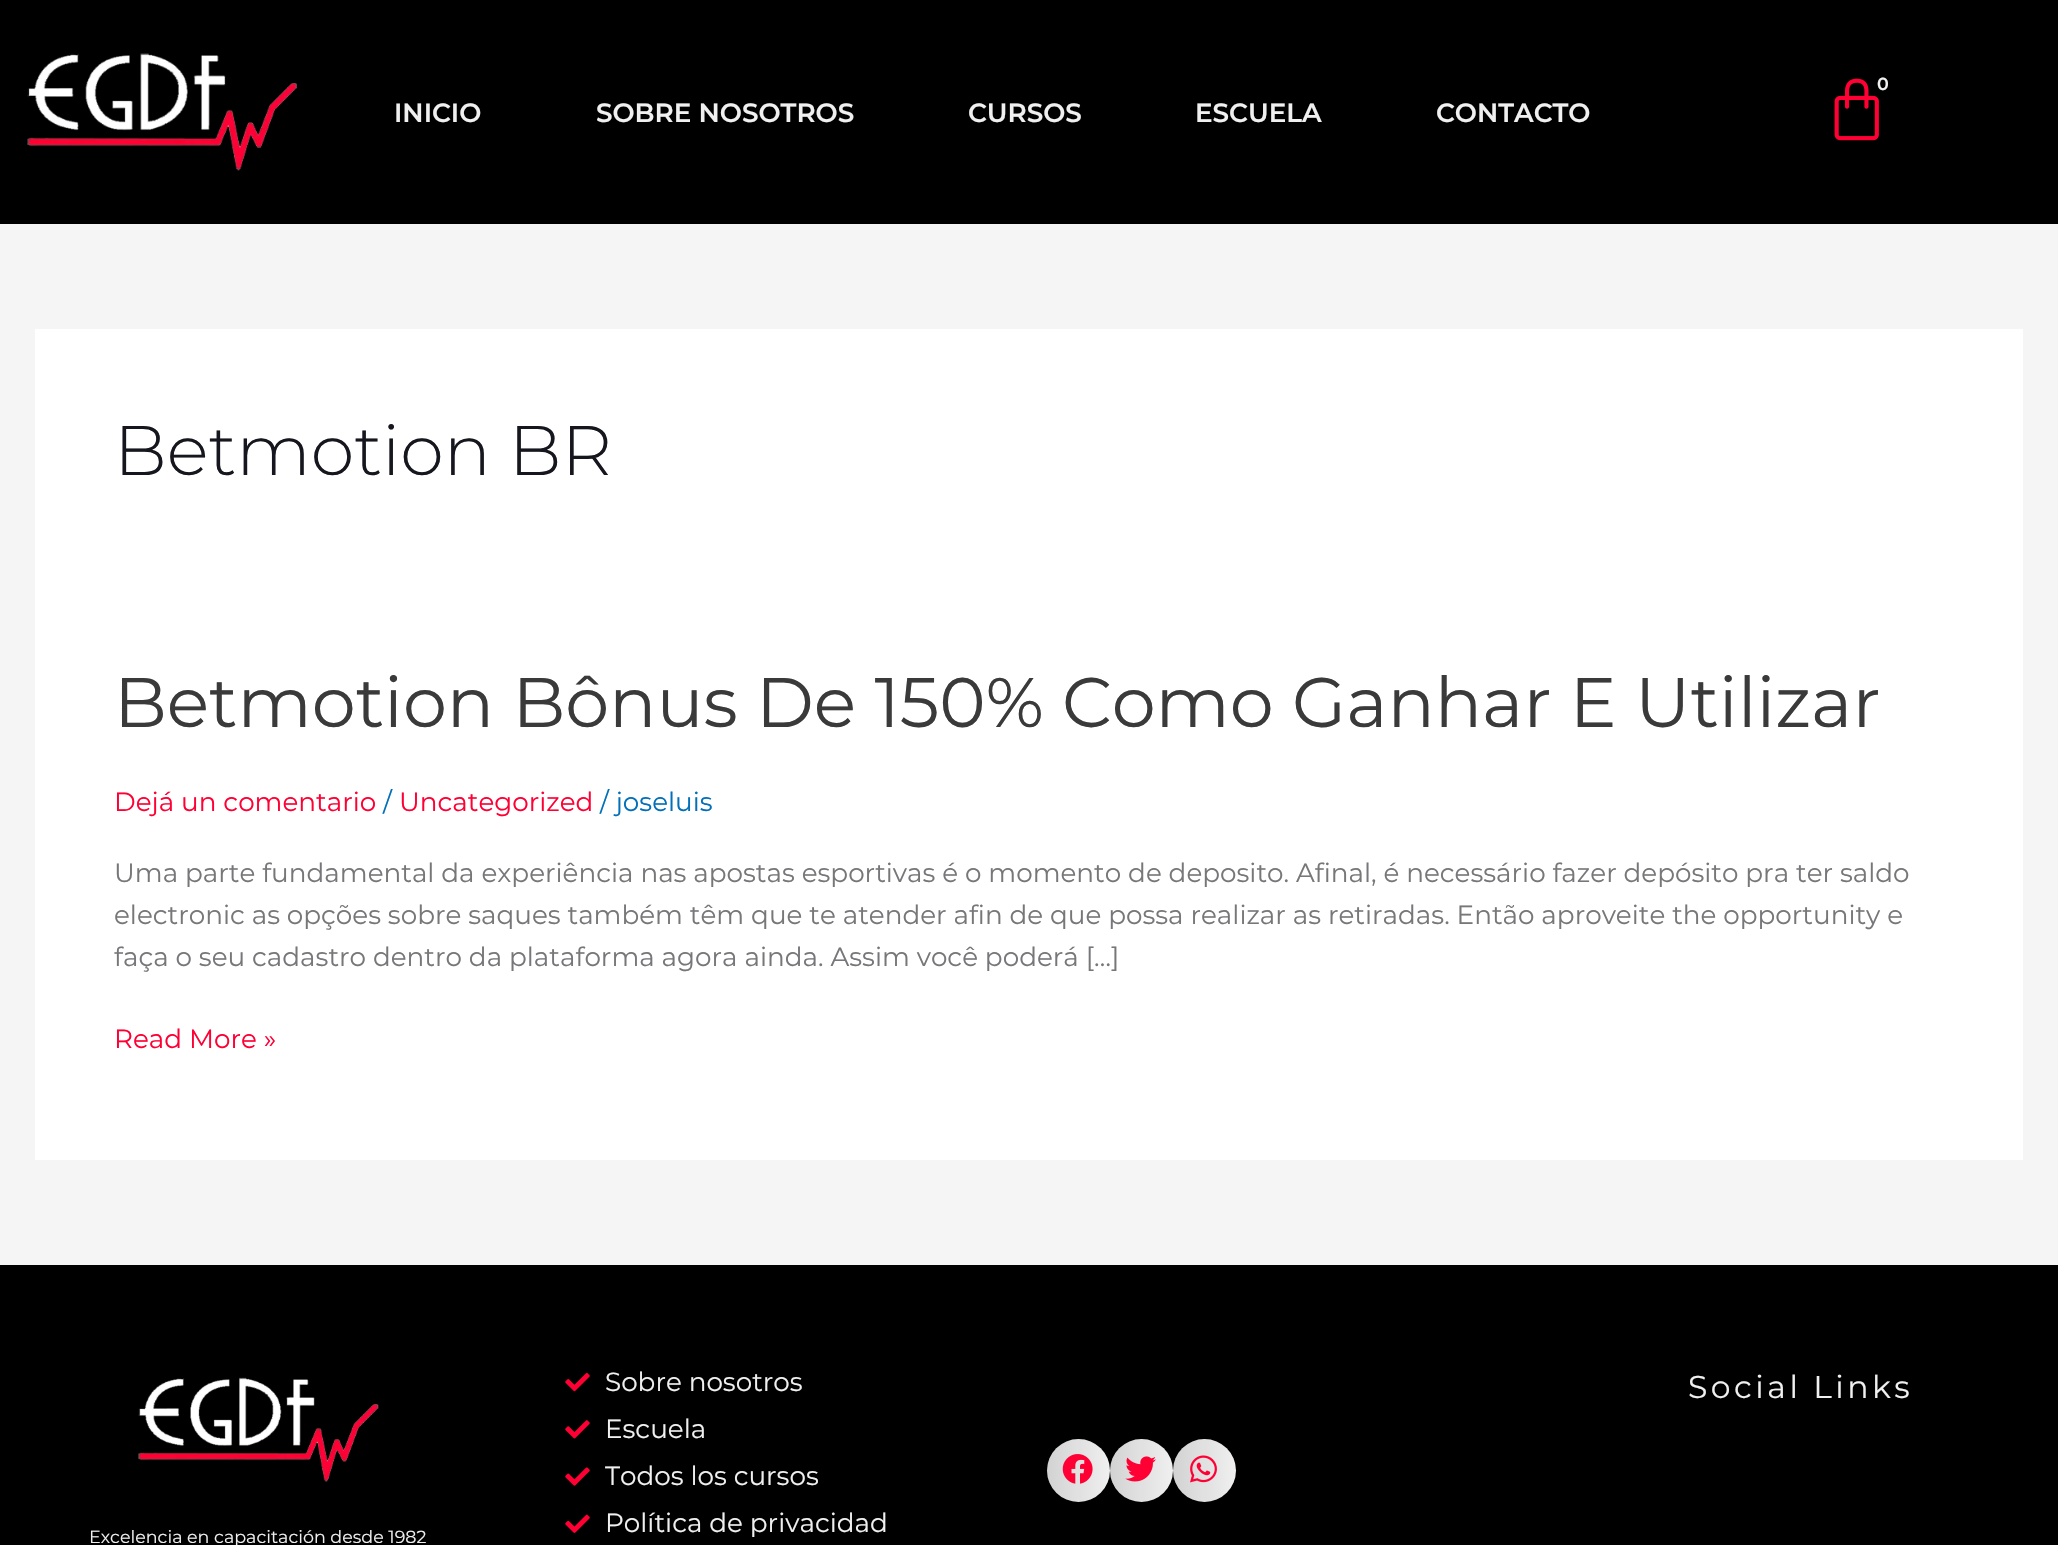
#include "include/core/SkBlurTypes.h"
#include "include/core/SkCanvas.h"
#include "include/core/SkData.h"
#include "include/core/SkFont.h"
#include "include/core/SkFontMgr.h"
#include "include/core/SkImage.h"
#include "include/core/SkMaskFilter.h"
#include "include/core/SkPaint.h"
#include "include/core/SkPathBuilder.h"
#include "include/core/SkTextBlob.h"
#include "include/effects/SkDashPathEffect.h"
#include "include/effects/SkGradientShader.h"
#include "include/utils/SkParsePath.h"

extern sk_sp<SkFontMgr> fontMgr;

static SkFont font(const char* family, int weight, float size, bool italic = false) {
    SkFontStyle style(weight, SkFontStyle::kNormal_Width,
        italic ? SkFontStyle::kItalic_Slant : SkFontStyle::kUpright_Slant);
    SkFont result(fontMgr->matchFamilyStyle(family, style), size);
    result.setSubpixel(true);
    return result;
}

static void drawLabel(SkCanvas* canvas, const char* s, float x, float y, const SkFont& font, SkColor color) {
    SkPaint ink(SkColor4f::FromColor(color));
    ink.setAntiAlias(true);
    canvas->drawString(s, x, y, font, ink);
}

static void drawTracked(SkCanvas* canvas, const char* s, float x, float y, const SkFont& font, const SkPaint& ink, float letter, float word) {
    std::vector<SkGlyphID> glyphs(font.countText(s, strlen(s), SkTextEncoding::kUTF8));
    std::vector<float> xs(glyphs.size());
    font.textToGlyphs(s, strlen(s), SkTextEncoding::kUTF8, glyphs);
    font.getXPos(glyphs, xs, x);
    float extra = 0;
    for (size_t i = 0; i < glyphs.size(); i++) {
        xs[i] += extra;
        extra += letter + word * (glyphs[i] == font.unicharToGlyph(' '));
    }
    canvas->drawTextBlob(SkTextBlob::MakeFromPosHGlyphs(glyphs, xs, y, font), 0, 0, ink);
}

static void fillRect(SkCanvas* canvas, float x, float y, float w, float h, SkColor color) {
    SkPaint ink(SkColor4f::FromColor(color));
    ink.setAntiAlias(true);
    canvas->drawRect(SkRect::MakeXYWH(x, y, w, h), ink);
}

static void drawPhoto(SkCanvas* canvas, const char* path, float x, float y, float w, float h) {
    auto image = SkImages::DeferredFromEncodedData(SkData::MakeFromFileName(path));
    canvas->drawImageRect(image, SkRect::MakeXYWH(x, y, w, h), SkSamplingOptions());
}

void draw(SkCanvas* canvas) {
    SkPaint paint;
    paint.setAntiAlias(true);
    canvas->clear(0xFFF5F5F5);
    fillRect(canvas, 0, 0, 2058, 224, 0xFF000000);
    drawPhoto(canvas, "assets/img1.png", 27, 53, 271, 118);
    drawPhoto(canvas, "assets/img2.png", 1834, 78, 45, 63);
    paint.setColor(0xFF000000);
    canvas->drawCircle(1883, 84, 14, paint);
    SkFont font1 = font("Montserrat", 600, 17.5f);
    drawLabel(canvas, "0", 1877, 90, font1, 0xFFF0F0F0);
    SkFont font2 = font("Montserrat", 600, 26.25f);
    drawLabel(canvas, "INICIO", 394, 122, font2, 0xFFF0F0F0);
    drawLabel(canvas, "SOBRE NOSOTROS", 596, 122, font2, 0xFFF0F0F0);
    drawLabel(canvas, "CURSOS", 968, 122, font2, 0xFFF0F0F0);
    drawLabel(canvas, "ESCUELA", 1195, 122, font2, 0xFFF0F0F0);
    drawLabel(canvas, "CONTACTO", 1436, 122, font2, 0xFFF0F0F0);
    fillRect(canvas, 35, 329, 1988, 831, 0xFFFFFFFF);
    SkFont font3 = font("Montserrat", 300, 70);
    drawLabel(canvas, "Betmotion BR", 114, 475, font3, 0xFF16171E);
    SkFont font4 = font("Montserrat", 400, 70);
    drawLabel(canvas, "Betmotion Bônus De 150% Como Ganhar E Utilizar", 114, 727, font4, 0xFF3A3A3A);
    SkFont font5 = font("Montserrat", 400, 26.25f);
    drawLabel(canvas, "Dejá un comentario", 114, 811, font5, 0xFFFF0034);
    drawLabel(canvas, "/", 383, 811, font5, 0xFF0170B9);
    drawLabel(canvas, "Uncategorized", 399, 811, font5, 0xFFFF0034);
    drawLabel(canvas, "/ joseluis", 600, 811, font5, 0xFF0170B9);
    drawLabel(canvas, "Uma parte fundamental da experiência nas apostas esportivas é o momento de deposito. Afinal, é necessário fazer depósito pra ter saldo", 114, 882, font5, 0xFF777679);
    drawLabel(canvas, "electronic as opções sobre saques também têm que te atender afin de que possa realizar as retiradas. Então aproveite the opportunity e", 114, 924, font5, 0xFF777679);
    drawLabel(canvas, "faça o seu cadastro dentro da plataforma agora ainda. Assim você poderá […]", 114, 966, font5, 0xFF777679);
    drawLabel(canvas, "Read More »", 114, 1048, font5, 0xFFFF0034);
    fillRect(canvas, 0, 1265, 2058, 280, 0xFF000000);
    drawPhoto(canvas, "assets/img3.png", 565, 1372, 25, 20);
    drawLabel(canvas, "Sobre nosotros", 605, 1391, font5, 0xFFF0F0F0);
    drawPhoto(canvas, "assets/img4.png", 565, 1420, 25, 19);
    drawLabel(canvas, "Escuela", 605, 1438, font5, 0xFFF0F0F0);
    drawPhoto(canvas, "assets/img5.png", 565, 1467, 25, 19);
    drawLabel(canvas, "Todos los cursos", 605, 1485, font5, 0xFFF0F0F0);
    drawPhoto(canvas, "assets/img6.png", 565, 1514, 25, 19);
    drawLabel(canvas, "Política de privacidad", 605, 1532, font5, 0xFFF0F0F0);
    SkFont font6 = font("Montserrat", 400, 31.5f);
    paint.setColor(0xFFF0F0F0);
    drawTracked(canvas, "Social Links", 1688, 1398, font6, paint, 3.5f, 0);
    canvas->drawCircle(1078.5f, 1470.5f, 31.5f, paint);
    {
        const SkColor colors[] = {0x1F000000, 0x00000000};
        const float stops[] = {0, 1};
        const SkPoint ends[] = {{1047, 1470}, {1110, 1470}};
        paint.setShader(SkGradientShader::MakeLinear(ends, colors, stops, 2, SkTileMode::kClamp));
        paint.setAlpha(255);
    }
    canvas->drawCircle(1078.5f, 1470.5f, 31.5f, paint);
    drawPhoto(canvas, "assets/img7.png", 1062, 1454, 31, 30);
    paint.setShader(nullptr);
    paint.setColor(0xFFF0F0F0);
    canvas->drawCircle(1141.5f, 1470.5f, 31.5f, paint);
    {
        const SkColor colors[] = {0x1F000000, 0x00000000};
        const float stops[] = {0, 1};
        const SkPoint ends[] = {{1110, 1470}, {1173, 1470}};
        paint.setShader(SkGradientShader::MakeLinear(ends, colors, stops, 2, SkTileMode::kClamp));
        paint.setAlpha(255);
    }
    canvas->drawCircle(1141.5f, 1470.5f, 31.5f, paint);
    drawPhoto(canvas, "assets/img8.png", 1125, 1456, 31, 26);
    paint.setShader(nullptr);
    paint.setColor(0xFFF0F0F0);
    canvas->drawCircle(1204.5f, 1470.5f, 31.5f, paint);
    {
        const SkColor colors[] = {0x1F000000, 0x00000000};
        const float stops[] = {0, 1};
        const SkPoint ends[] = {{1173, 1470}, {1236, 1470}};
        paint.setShader(SkGradientShader::MakeLinear(ends, colors, stops, 2, SkTileMode::kClamp));
        paint.setAlpha(255);
    }
    canvas->drawCircle(1204.5f, 1470.5f, 31.5f, paint);
    drawPhoto(canvas, "assets/img9.png", 1190, 1455, 27, 28);
    drawPhoto(canvas, "assets/img10.png", 138, 1377, 241, 105);
    SkFont font7 = font("Montserrat", 400, 17.5f);
    drawLabel(canvas, "Excelencia en capacitación desde 1982", 89, 1543, font7, 0xFFF0F0F0);
}
